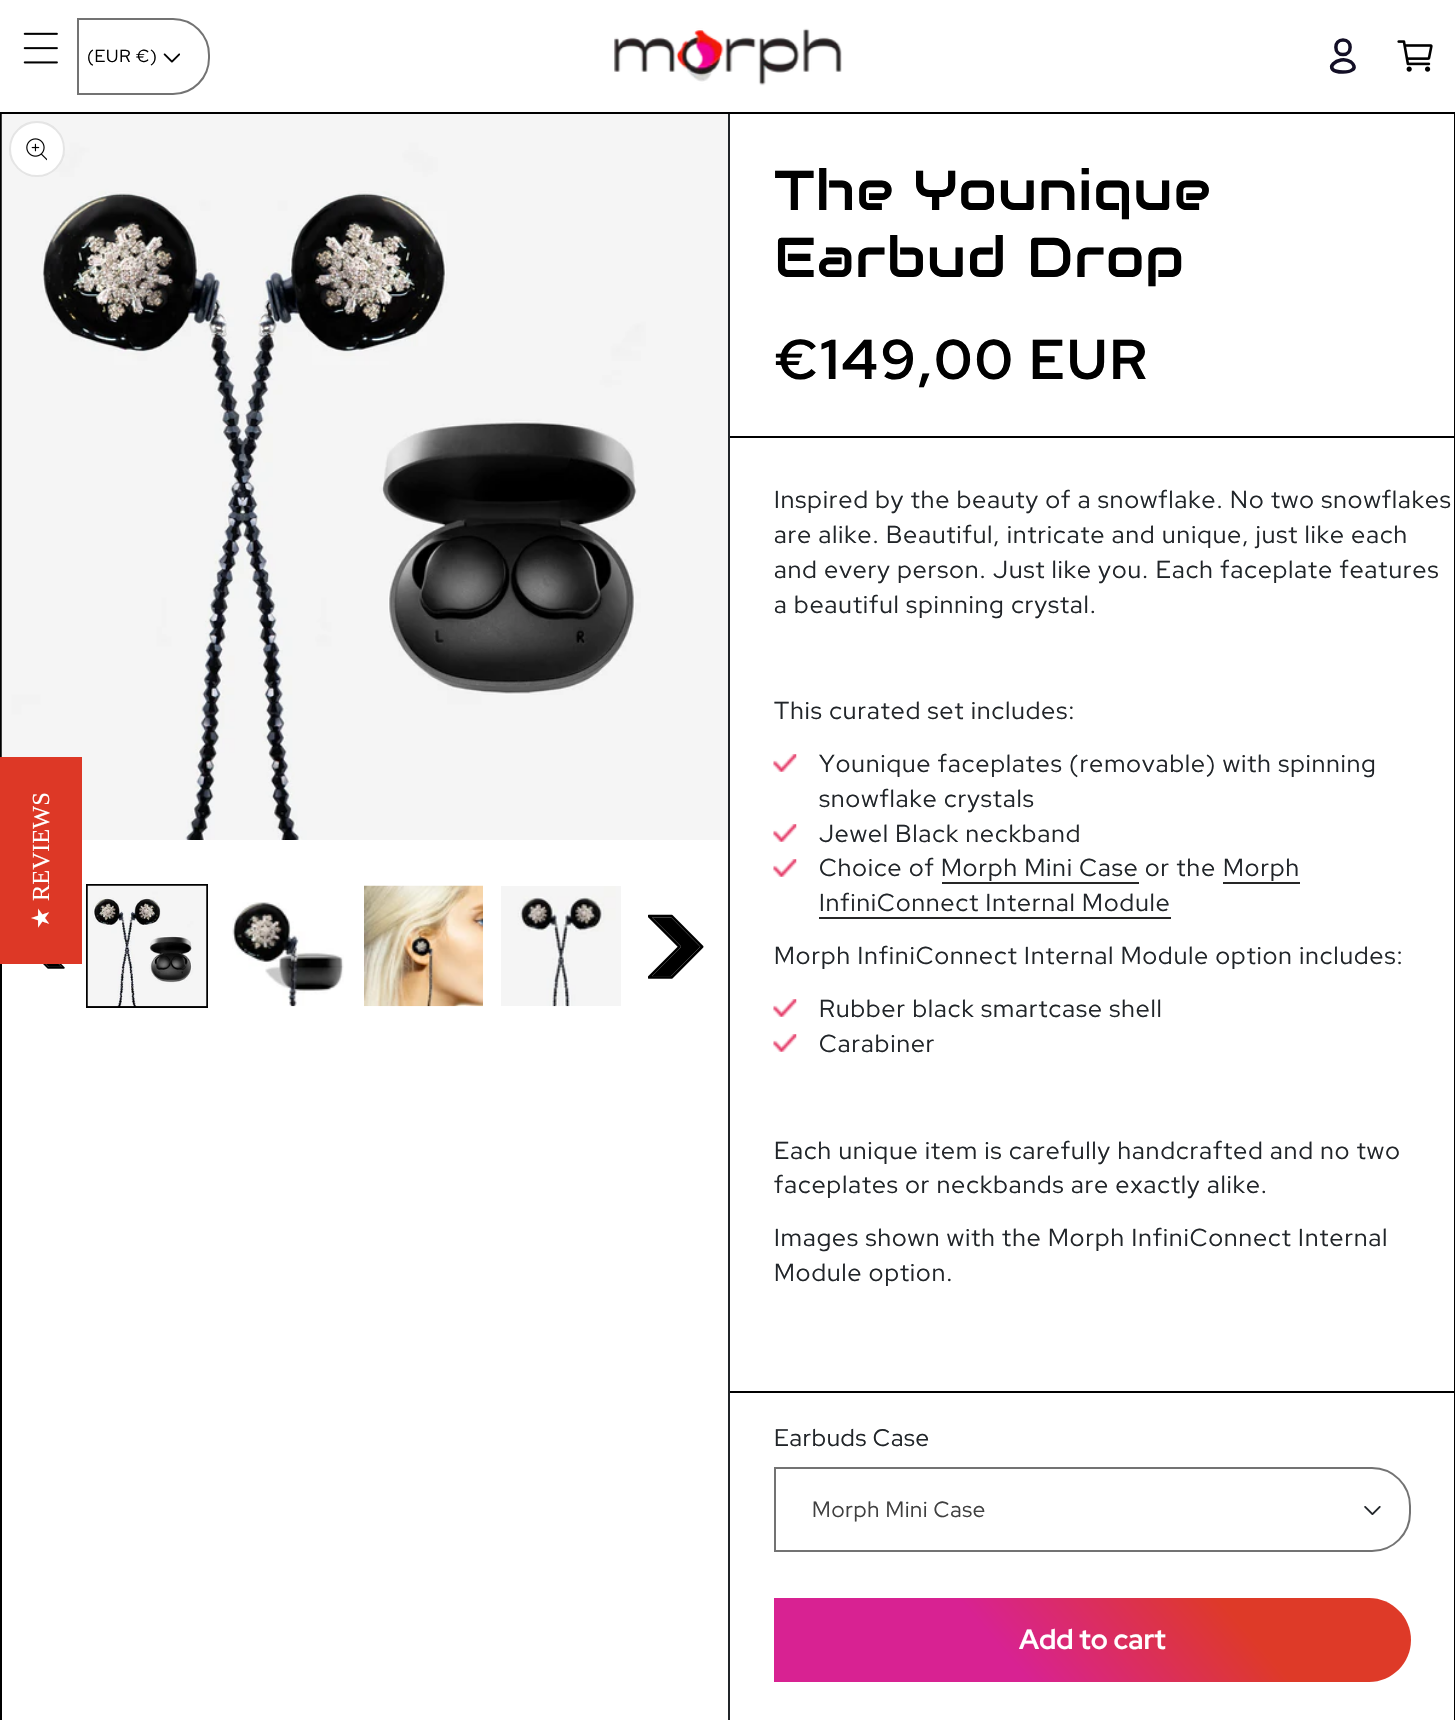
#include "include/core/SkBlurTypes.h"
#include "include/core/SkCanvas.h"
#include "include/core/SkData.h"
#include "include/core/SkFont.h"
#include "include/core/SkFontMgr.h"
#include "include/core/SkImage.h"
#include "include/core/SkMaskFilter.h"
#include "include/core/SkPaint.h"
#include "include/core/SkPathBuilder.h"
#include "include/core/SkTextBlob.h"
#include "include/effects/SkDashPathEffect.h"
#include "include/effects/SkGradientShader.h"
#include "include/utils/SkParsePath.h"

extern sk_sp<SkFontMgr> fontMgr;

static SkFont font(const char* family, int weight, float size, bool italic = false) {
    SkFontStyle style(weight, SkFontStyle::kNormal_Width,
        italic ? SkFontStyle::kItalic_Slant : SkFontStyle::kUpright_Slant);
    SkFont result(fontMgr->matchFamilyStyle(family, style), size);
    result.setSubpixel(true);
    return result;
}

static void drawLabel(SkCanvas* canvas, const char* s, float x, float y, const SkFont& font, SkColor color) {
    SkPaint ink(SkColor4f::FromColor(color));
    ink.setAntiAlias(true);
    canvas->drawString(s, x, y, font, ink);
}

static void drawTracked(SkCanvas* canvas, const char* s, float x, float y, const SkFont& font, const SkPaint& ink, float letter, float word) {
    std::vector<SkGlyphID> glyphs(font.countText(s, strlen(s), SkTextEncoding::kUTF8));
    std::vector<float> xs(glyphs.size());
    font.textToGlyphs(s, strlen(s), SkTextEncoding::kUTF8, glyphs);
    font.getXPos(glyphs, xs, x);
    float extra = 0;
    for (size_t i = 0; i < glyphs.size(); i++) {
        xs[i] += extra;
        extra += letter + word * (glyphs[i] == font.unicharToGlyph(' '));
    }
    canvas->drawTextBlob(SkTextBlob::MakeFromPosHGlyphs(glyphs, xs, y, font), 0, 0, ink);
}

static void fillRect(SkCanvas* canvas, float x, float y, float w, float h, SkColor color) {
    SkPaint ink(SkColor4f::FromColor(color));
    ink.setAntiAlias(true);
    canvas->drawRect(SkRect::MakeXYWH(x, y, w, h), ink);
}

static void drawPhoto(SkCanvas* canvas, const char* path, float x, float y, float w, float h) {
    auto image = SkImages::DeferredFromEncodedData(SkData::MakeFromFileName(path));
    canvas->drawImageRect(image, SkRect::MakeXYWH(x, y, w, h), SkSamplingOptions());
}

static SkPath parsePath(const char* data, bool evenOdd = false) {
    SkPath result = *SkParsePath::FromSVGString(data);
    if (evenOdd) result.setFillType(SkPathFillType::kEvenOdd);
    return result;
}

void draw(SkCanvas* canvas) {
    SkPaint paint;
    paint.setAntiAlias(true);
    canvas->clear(0xFFFFFFFF);
    fillRect(canvas, 0, 112, 1455, 2, 0xFF000000);
    drawPhoto(canvas, "assets/img1.png", 23, 32, 35, 32);
    drawPhoto(canvas, "assets/img2.png", 163, 53, 17, 10);
    paint.setStroke(true);
    paint.setStrokeWidth(2);
    paint.setColor(0xFF737373);
    canvas->drawPath(parsePath("M78 19H173C193 19 209 35 209 55V58C209 78 193 94 173 94H78Z"), paint);
    SkFont font1 = font("Red Hat Display", 400, 17.5f);
    paint.setStroke(false);
    paint.setColor(0xFF000000);
    drawTracked(canvas, "(EUR €)", 87, 62, font1, paint, 0.75f, 0);
    drawPhoto(canvas, "assets/img3.png", 614, 28, 228, 58);
    paint.setStroke(true);
    paint.setStrokeWidth(3.5f);
    paint.setStrokeCap(SkPaint::kRound_Cap);
    paint.setStrokeJoin(SkPaint::kRound_Join);
    paint.setColor(0xFF130F26);
    canvas->drawPath(parsePath("M1343 72C1319.5 72 1338 53.5 1351 62C1353.5 64 1356 68 1352 70C1349.5 72 1346 72 1343 72ZM1343 54.5C1352.5 54.5 1352.5 40 1343 40C1333.5 40 1333.5 54.5 1343 54.5Z"), paint);
    drawPhoto(canvas, "assets/img4.png", 1397, 40, 36, 32);
    fillRect(canvas, 0, 114, 2, 1606, 0xFF000000);
    drawPhoto(canvas, "assets/img5.png", 1, 114, 727, 726);
    fillRect(canvas, 0, 757, 82, 207, 0xFFDD3826);
    SkFont font2 = font("Liberation Serif", 400, 24.5f);
    canvas->save();
    canvas->rotate(-90, 49, 901);
    drawLabel(canvas, "REVIEWS", 49, 901, font2, 0xFFFFFFFF);
    canvas->restore();
    SkFont font3 = font("DejaVu Sans", 400, 24.5f);
    canvas->save();
    canvas->rotate(-90, 49, 929);
    drawLabel(canvas, "★", 49, 929, font3, 0xFFFFFFFF);
    canvas->restore();
    fillRect(canvas, 1454, 114, 1, 1606, 0xFF000000);
    paint.setStroke(false);
    paint.setColor(0xFFFFFFFF);
    canvas->drawCircle(37, 149, 28, paint);
    paint.setStroke(true);
    paint.setStrokeWidth(2);
    paint.setStrokeCap(SkPaint::kButt_Cap);
    paint.setStrokeJoin(SkPaint::kMiter_Join);
    paint.setColor(0x1A000000);
    canvas->drawCircle(37, 149, 27, paint);
    drawPhoto(canvas, "assets/img6.png", 26, 138, 21, 23);
    drawPhoto(canvas, "assets/img7.png", 43, 964, 22, 5);
    paint.setColor(0xFF000000);
    canvas->drawRect(SkRect::MakeXYWH(87, 885, 120, 122), paint);
    drawPhoto(canvas, "assets/img8.png", 87, 885, 120, 122);
    drawPhoto(canvas, "assets/img9.png", 232, 902, 112, 105);
    drawPhoto(canvas, "assets/img10.png", 364, 885, 119, 122);
    drawPhoto(canvas, "assets/img11.png", 501, 886, 120, 121);
    drawPhoto(canvas, "assets/img12.png", 648, 914, 56, 65);
    fillRect(canvas, 728, 114, 2, 1606, 0xFF212529);
    SkFont font4 = font("Audiowide", 400, 56);
    paint.setStroke(false);
    drawTracked(canvas, "The Younique", 774, 210, font4, paint, 1.2f, 0);
    drawTracked(canvas, "Earbud Drop", 774, 277, font4, paint, 1.2f, 0);
    SkFont font5 = font("Red Hat Display", 700, 56);
    drawTracked(canvas, "€149,00 EUR", 774, 379, font5, paint, 2.4f, 0);
    fillRect(canvas, 730, 436, 724, 2, 0xFF000000);
    SkFont font6 = font("Red Hat Display", 400, 24.5f);
    paint.setColor(0xFF212529);
    drawTracked(canvas, "Inspired by the beauty of a snowflake. No two snowflakes", 774, 508, font6, paint, 1.1f, 0);
    drawTracked(canvas, "are alike. Beautiful, intricate and unique, just like each", 774, 543, font6, paint, 1.1f, 0);
    drawTracked(canvas, "and every person. Just like you. Each faceplate features", 774, 578, font6, paint, 1.1f, 0);
    drawTracked(canvas, "a beautiful spinning crystal.", 774, 613, font6, paint, 1.1f, 0);
    drawTracked(canvas, "This curated set includes:", 774, 719, font6, paint, 1.1f, 0);
    drawPhoto(canvas, "assets/img13.png", 773, 754, 24, 18);
    drawTracked(canvas, "Younique faceplates (removable) with spinning", 819, 772, font6, paint, 1.1f, 0);
    drawTracked(canvas, "snowflake crystals", 819, 807, font6, paint, 1.1f, 0);
    drawPhoto(canvas, "assets/img13.png", 773, 824, 24, 18);
    drawTracked(canvas, "Jewel Black neckband", 819, 842, font6, paint, 1.1f, 0);
    drawPhoto(canvas, "assets/img13.png", 773, 859, 24, 18);
    drawTracked(canvas, "Choice of", 819, 876, font6, paint, 1.1f, 0);
    drawTracked(canvas, "Morph Mini Case", 941, 876, font6, paint, 1.1f, 0);
    fillRect(canvas, 942, 882, 197, 2, 0xFF262626);
    drawTracked(canvas, "or the", 1145, 876, font6, paint, 1.1f, 0);
    drawTracked(canvas, "Morph", 1223, 876, font6, paint, 1.1f, 0);
    fillRect(canvas, 1223, 882, 77, 2, 0xFF262626);
    drawTracked(canvas, "InfiniConnect Internal Module", 819, 911, font6, paint, 1.1f, 0);
    fillRect(canvas, 819, 917, 352, 2, 0xFF262626);
    drawTracked(canvas, "Morph InfiniConnect Internal Module option includes:", 774, 964, font6, paint, 1.1f, 0);
    drawPhoto(canvas, "assets/img13.png", 773, 999, 24, 18);
    drawTracked(canvas, "Rubber black smartcase shell", 819, 1017, font6, paint, 1.1f, 0);
    drawPhoto(canvas, "assets/img13.png", 773, 1034, 24, 18);
    drawTracked(canvas, "Carabiner", 819, 1052, font6, paint, 1.1f, 0);
    drawTracked(canvas, "Each unique item is carefully handcrafted and no two", 774, 1159, font6, paint, 1.1f, 0);
    drawTracked(canvas, "faceplates or neckbands are exactly alike.", 774, 1193, font6, paint, 1.1f, 0);
    drawTracked(canvas, "Images shown with the Morph InfiniConnect Internal", 774, 1246, font6, paint, 1.1f, 0);
    drawTracked(canvas, "Module option.", 774, 1281, font6, paint, 1.1f, 0);
    fillRect(canvas, 730, 1391, 724, 2, 0xFF000000);
    SkFont font7 = font("Red Hat Display", 400, 24);
    drawTracked(canvas, "Earbuds Case", 774, 1446, font7, paint, 0.75f, 0);
    drawPhoto(canvas, "assets/img14.png", 1364, 1506, 17, 9);
    paint.setStroke(true);
    paint.setColor(0xFF737373);
    canvas->drawPath(parsePath("M775 1468H1372C1393 1468 1410 1485 1410 1506V1513C1410 1534 1393 1551 1372 1551H775Z"), paint);
    SkFont font8 = font("Red Hat Display", 400, 22);
    paint.setStroke(false);
    paint.setColor(0xFF404040);
    drawTracked(canvas, "Morph Mini Case", 812, 1517, font8, paint, 0.75f, 0);
    {
        const SkColor colors[] = {0xFFDE3A28, 0xFFD82292};
        const float stops[] = {0.27f, 0.64f};
        const SkPoint ends[] = {{1296, 1464}, {888, 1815}};
        paint.setShader(SkGradientShader::MakeLinear(ends, colors, stops, 2, SkTileMode::kClamp));
        paint.setAlpha(255);
    }
    canvas->drawPath(parsePath("M774 1598H1369C1392 1598 1411 1617 1411 1640C1411 1663 1392 1682 1369 1682H774Z"), paint);
    SkFont font9 = font("Red Hat Display", 700, 28);
    drawLabel(canvas, "Add to cart", 1019, 1649, font9, 0xFFFFFFFF);
}
